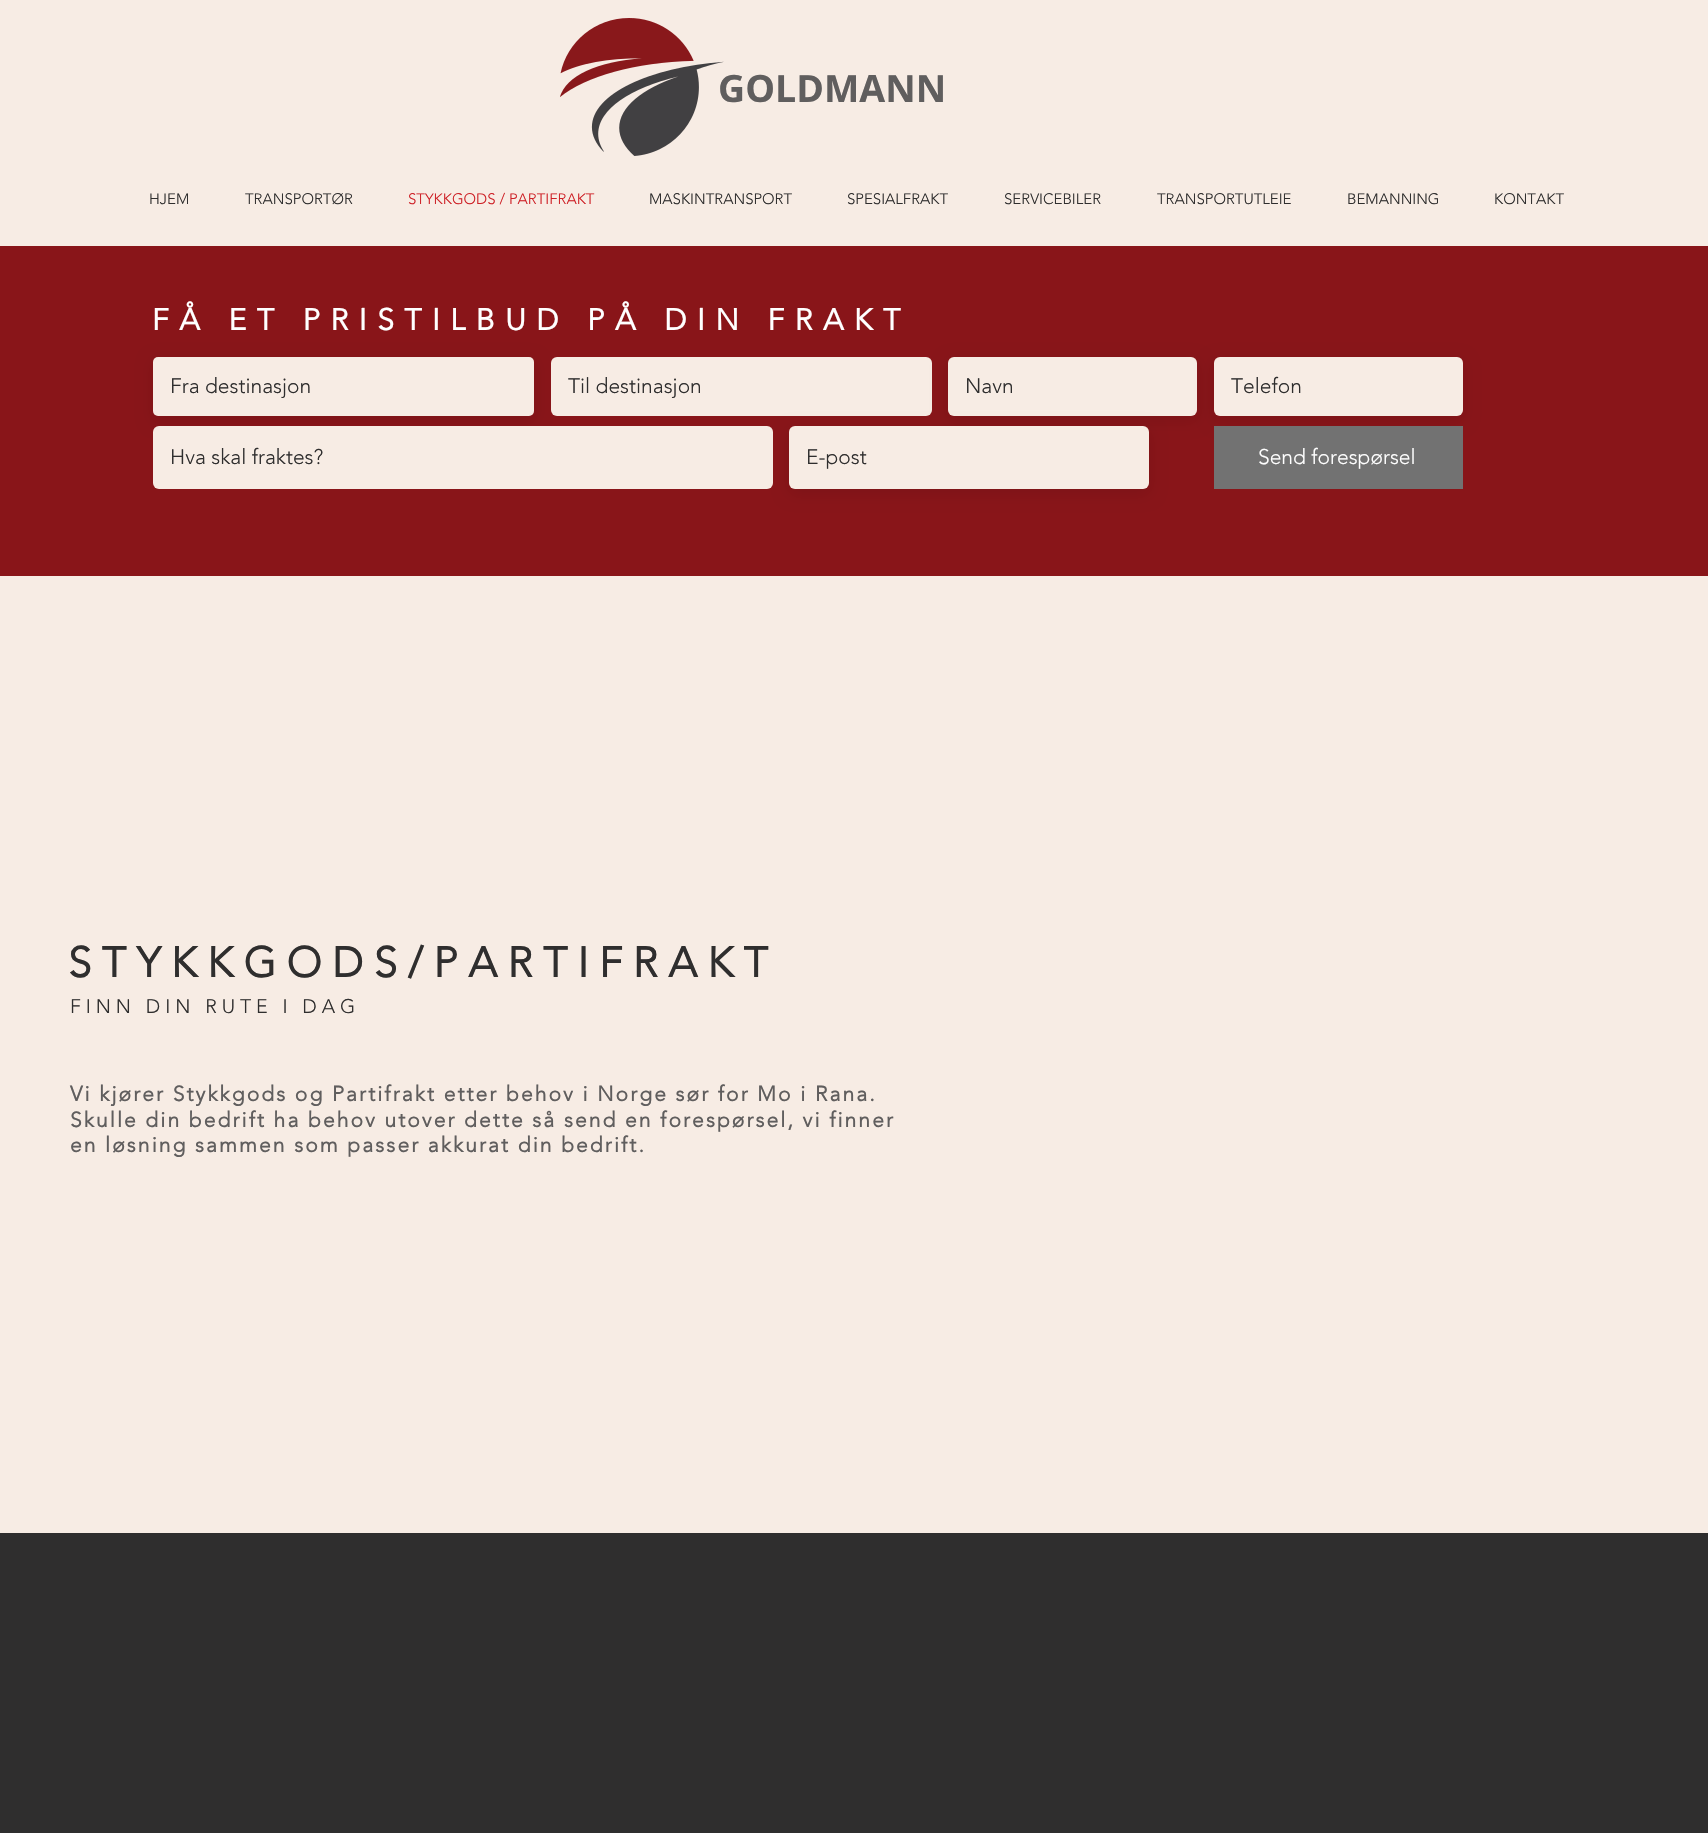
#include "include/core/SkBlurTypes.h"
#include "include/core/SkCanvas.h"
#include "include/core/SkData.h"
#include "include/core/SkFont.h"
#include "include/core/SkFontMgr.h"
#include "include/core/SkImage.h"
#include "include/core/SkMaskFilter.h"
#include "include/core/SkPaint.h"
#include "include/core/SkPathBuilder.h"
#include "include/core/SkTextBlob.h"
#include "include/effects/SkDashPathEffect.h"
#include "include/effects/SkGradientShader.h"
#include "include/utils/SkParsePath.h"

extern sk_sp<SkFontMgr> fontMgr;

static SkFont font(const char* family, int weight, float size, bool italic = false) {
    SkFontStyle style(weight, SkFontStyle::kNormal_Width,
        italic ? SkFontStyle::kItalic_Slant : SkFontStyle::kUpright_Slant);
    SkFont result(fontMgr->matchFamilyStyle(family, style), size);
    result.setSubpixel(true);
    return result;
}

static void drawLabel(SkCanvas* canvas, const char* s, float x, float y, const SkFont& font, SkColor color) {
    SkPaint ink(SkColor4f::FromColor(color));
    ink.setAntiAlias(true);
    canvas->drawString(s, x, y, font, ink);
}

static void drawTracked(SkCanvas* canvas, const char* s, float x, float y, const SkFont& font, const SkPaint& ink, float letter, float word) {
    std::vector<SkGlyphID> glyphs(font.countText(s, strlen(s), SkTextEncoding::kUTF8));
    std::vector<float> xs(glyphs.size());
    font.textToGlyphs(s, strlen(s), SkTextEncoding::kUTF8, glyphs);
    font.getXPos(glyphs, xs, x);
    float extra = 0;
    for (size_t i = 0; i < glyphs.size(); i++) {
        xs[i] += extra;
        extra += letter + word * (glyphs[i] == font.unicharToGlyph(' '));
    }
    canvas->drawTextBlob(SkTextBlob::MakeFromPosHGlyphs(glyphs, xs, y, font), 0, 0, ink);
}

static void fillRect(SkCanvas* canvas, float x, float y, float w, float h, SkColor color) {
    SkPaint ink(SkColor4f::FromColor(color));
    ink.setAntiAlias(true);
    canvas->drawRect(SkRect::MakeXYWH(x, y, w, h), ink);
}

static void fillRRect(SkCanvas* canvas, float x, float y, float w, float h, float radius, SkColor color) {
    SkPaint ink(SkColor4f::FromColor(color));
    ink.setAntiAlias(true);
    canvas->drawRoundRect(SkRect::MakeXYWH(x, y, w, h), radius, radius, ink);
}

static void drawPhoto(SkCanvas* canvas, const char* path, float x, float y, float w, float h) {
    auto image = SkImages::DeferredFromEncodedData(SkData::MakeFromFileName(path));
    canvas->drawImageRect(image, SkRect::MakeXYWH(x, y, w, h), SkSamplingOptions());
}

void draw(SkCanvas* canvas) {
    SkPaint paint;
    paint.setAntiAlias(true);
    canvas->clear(0xFF2F2E2E);
    fillRect(canvas, 0, 0, 1708, 246, 0xFFF7ECE4);
    SkFont font1 = font("Open Sans", 700, 37.5f);
    drawLabel(canvas, "GOLDMANN", 718, 102, font1, 0xFF605E5E);
    drawPhoto(canvas, "assets/img1.png", 560, 18, 164, 138);
    SkFont font2 = font("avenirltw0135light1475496", 300, 15);
    drawLabel(canvas, "HJEM", 149, 204, font2, 0xFF2F2E2E);
    drawLabel(canvas, "TRANSPORTØR", 245, 204, font2, 0xFF2F2E2E);
    drawLabel(canvas, "STYKKGODS / PARTIFRAKT", 408, 204, font2, 0xFFCE2026);
    drawLabel(canvas, "MASKINTRANSPORT", 649, 204, font2, 0xFF2F2E2E);
    drawLabel(canvas, "SPESIALFRAKT", 847, 204, font2, 0xFF2F2E2E);
    drawLabel(canvas, "SERVICEBILER", 1004, 204, font2, 0xFF2F2E2E);
    drawLabel(canvas, "TRANSPORTUTLEIE", 1157, 204, font2, 0xFF2F2E2E);
    drawLabel(canvas, "BEMANNING", 1347, 204, font2, 0xFF2F2E2E);
    drawLabel(canvas, "KONTAKT", 1494, 204, font2, 0xFF2F2E2E);
    fillRect(canvas, 0, 246, 1708, 330, 0xFF891519);
    SkFont font3 = font("avenirltw0135light1475496", 700, 30);
    paint.setColor(0xFFFFFFFF);
    drawTracked(canvas, "FÅ ET PRISTILBUD PÅ DIN FRAKT", 152, 330, font3, paint, 10.5f, 0);
    paint.setColor(0x14000000);
    paint.setMaskFilter(SkMaskFilter::MakeBlur(kNormal_SkBlurStyle, 7.5f));
    canvas->drawRoundRect(SkRect::MakeXYWH(152, 360, 384, 62), 6, 6, paint);
    paint.setMaskFilter(nullptr);
    fillRRect(canvas, 153, 357, 381, 59, 5, 0xFFF7ECE4);
    SkFont font4 = font("avenirltw0135light1475496", 300, 21);
    drawLabel(canvas, "Fra destinasjon", 170, 393, font4, 0xFF2F2E2E);
    fillRRect(canvas, 551, 357, 381, 59, 6, 0xFFF7ECE4);
    drawLabel(canvas, "Til destinasjon", 568, 393, font4, 0xFF2F2E2E);
    paint.setMaskFilter(SkMaskFilter::MakeBlur(kNormal_SkBlurStyle, 7.5f));
    canvas->drawRoundRect(SkRect::MakeXYWH(947, 360, 252, 62), 8, 8, paint);
    paint.setMaskFilter(nullptr);
    fillRRect(canvas, 948, 357, 249, 59, 6, 0xFFF7ECE4);
    drawLabel(canvas, "Navn", 965, 393, font4, 0xFF2F2E2E);
    paint.setMaskFilter(SkMaskFilter::MakeBlur(kNormal_SkBlurStyle, 7.5f));
    canvas->drawRoundRect(SkRect::MakeXYWH(1212, 360, 252, 62), 8, 8, paint);
    paint.setMaskFilter(nullptr);
    fillRRect(canvas, 1214, 357, 249, 59, 6, 0xFFF7ECE4);
    drawLabel(canvas, "Telefon", 1231, 393, font4, 0xFF2F2E2E);
    fillRRect(canvas, 153, 426, 620, 63, 6, 0xFFF7ECE4);
    drawLabel(canvas, "Hva skal fraktes?", 170, 464, font4, 0xFF2F2E2E);
    paint.setMaskFilter(SkMaskFilter::MakeBlur(kNormal_SkBlurStyle, 7.5f));
    canvas->drawRoundRect(SkRect::MakeXYWH(788, 429, 363, 66), 8, 8, paint);
    paint.setMaskFilter(nullptr);
    fillRRect(canvas, 789, 426, 360, 63, 6, 0xFFF7ECE4);
    drawLabel(canvas, "E-post", 806, 464, font4, 0xFF2F2E2E);
    fillRect(canvas, 1214, 426, 249, 63, 0xFF727272);
    drawLabel(canvas, "Send forespørsel", 1258, 464, font4, 0xFFFFFFFF);
    fillRect(canvas, 0, 576, 1708, 957, 0xFFF7ECE4);
    SkFont font5 = font("avenirltw0135light1475496", 700, 42);
    paint.setColor(0xFF2F2E2E);
    drawTracked(canvas, "STYKKGODS/PARTIFRAKT", 68, 977, font5, paint, 10.5f, 0);
    SkFont font6 = font("avenirltw0135light1475496", 300, 19.5f);
    drawTracked(canvas, "FINN DIN RUTE I DAG", 70, 1013, font6, paint, 4.9f, 0);
    SkFont font7 = font("avenirltw0135light1475496", 700, 21);
    paint.setColor(0xFF605E5E);
    drawTracked(canvas, "Vi kjører Stykkgods og Partifrakt etter behov i Norge sør for Mo i Rana.", 70, 1101, font7, paint, 2.1f, 0);
    drawTracked(canvas, "Skulle din bedrift ha behov utover dette så send en forespørsel, vi finner", 70, 1127, font7, paint, 2.1f, 0);
    drawTracked(canvas, "en løsning sammen som passer akkurat din bedrift.", 70, 1152, font7, paint, 2.1f, 0);
}
